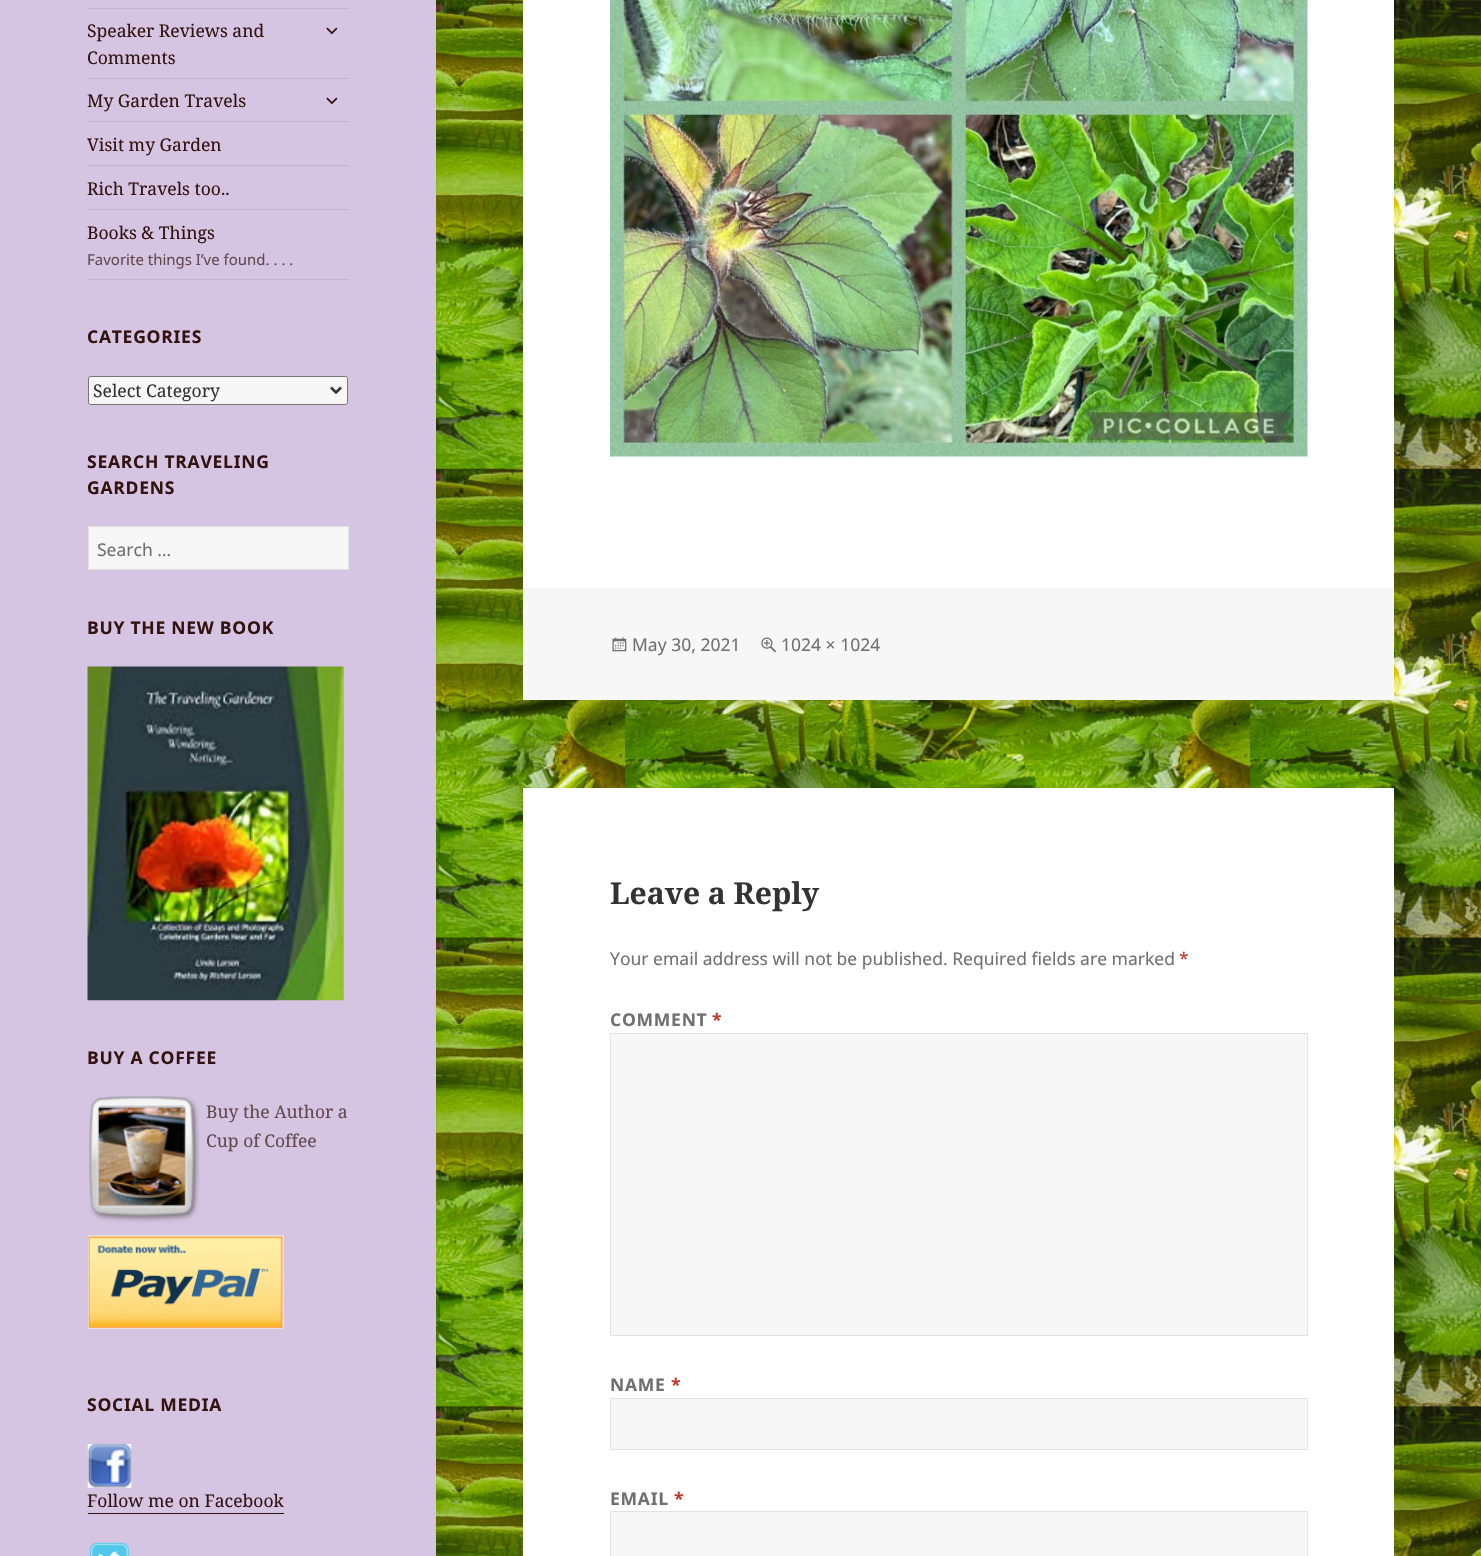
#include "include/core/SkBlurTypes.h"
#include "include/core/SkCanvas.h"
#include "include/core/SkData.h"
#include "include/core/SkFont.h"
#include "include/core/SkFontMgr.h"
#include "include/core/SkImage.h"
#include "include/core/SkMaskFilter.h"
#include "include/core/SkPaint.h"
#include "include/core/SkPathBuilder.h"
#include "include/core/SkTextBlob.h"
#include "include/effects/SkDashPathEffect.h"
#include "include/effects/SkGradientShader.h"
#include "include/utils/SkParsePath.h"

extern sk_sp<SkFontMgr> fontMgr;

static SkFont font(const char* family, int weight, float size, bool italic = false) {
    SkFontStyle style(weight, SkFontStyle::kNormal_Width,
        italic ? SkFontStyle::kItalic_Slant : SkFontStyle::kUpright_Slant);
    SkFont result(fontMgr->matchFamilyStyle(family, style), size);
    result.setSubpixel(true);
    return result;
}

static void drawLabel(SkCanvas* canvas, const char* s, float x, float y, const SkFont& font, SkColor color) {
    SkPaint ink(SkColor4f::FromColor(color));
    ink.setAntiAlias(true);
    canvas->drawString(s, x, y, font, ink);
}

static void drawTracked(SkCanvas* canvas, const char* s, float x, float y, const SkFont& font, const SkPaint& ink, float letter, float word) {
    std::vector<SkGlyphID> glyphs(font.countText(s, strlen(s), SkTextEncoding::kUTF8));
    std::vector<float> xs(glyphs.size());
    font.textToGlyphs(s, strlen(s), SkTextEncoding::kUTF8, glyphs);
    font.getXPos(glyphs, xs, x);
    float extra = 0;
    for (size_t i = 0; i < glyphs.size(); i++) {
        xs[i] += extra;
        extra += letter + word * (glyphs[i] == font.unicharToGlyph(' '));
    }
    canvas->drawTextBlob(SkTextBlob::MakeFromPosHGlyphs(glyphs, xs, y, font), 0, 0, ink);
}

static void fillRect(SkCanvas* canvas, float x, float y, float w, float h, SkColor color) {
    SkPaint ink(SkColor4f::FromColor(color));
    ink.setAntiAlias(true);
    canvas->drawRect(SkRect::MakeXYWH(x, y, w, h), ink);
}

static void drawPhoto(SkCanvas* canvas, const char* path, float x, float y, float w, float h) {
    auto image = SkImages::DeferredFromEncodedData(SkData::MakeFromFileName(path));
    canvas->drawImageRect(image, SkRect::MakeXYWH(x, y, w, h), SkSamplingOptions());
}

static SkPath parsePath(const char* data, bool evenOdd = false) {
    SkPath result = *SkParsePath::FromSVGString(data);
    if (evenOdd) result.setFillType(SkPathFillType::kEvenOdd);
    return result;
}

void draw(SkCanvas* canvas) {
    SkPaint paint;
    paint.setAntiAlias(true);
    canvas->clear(0xFFFFFFFF);
    drawPhoto(canvas, "assets/img1.png", 436, 0, 1045, 1556);
    fillRect(canvas, 0, 0, 436, 1556, 0xFFD6C5E2);
    fillRect(canvas, 88, 279, 261, 1, 0xFFC6B3CD);
    fillRect(canvas, 88, 8, 261, 1, 0xFFC6B3CD);
    SkFont font1 = font("Noto Serif", 400, 17.5f);
    drawLabel(canvas, "Speaker Reviews and", 87, 37, font1, 0xFF331212);
    drawLabel(canvas, "Comments", 87, 64, font1, 0xFF331212);
    drawPhoto(canvas, "assets/img2.png", 326, 27, 12, 8);
    fillRect(canvas, 88, 78, 261, 1, 0xFFC6B3CD);
    drawLabel(canvas, "My Garden Travels", 87, 107, font1, 0xFF331212);
    drawPhoto(canvas, "assets/img2.png", 326, 97, 12, 8);
    fillRect(canvas, 88, 121, 261, 1, 0xFFC6B3CD);
    drawLabel(canvas, "Visit my Garden", 87, 151, font1, 0xFF331212);
    fillRect(canvas, 88, 165, 261, 1, 0xFFC6B3CD);
    drawLabel(canvas, "Rich Travels too..", 87, 195, font1, 0xFF331212);
    fillRect(canvas, 88, 209, 261, 1, 0xFFC6B3CD);
    drawLabel(canvas, "Books & Things", 87, 239, font1, 0xFF331212);
    SkFont font2 = font("Noto Sans", 400, 15);
    drawLabel(canvas, "Favorite things I’ve found. . . .", 87, 265, font2, 0xFF644850);
    SkFont font3 = font("Noto Sans", 700, 17.5f);
    paint.setColor(0xFF331212);
    drawTracked(canvas, "CATEGORIES", 87, 343, font3, paint, 0.75f, 0);
    paint.setColor(0xFFF7F7F7);
    canvas->drawRoundRect(SkRect::MakeXYWH(88.5f, 376.5f, 259, 28), 2, 2, paint);
    paint.setStroke(true);
    paint.setStrokeWidth(1);
    paint.setColor(0xFF767676);
    canvas->drawRoundRect(SkRect::MakeXYWH(88.5f, 376.5f, 259, 28), 2, 2, paint);
    paint.setStrokeWidth(2.5f);
    paint.setColor(0xFF333333);
    canvas->drawPath(parsePath("M331 387.5L336 392.5L341 387.5"), paint);
    drawLabel(canvas, "Select Category", 93, 397, font1, 0xFF333333);
    paint.setStroke(false);
    paint.setColor(0xFF331212);
    drawTracked(canvas, "SEARCH TRAVELING", 87, 468, font3, paint, 0.75f, 0);
    drawTracked(canvas, "GARDENS", 87, 494, font3, paint, 0.75f, 0);
    paint.setColor(0xFFF7F7F7);
    canvas->drawRect(SkRect::MakeXYWH(88.5f, 526.5f, 260, 43), paint);
    paint.setStroke(true);
    paint.setStrokeWidth(1);
    paint.setColor(0xFFE3E0E0);
    canvas->drawRect(SkRect::MakeXYWH(88.5f, 526.5f, 260, 43), paint);
    SkFont font4 = font("Noto Sans", 400, 17.5f);
    drawLabel(canvas, "Search …", 97, 556, font4, 0xFF707070);
    paint.setStroke(false);
    paint.setColor(0xFF331212);
    drawTracked(canvas, "BUY THE NEW BOOK", 87, 634, font3, paint, 0.75f, 0);
    drawPhoto(canvas, "assets/img3.png", 87, 666, 257, 335);
    drawTracked(canvas, "BUY A COFFEE", 87, 1064, font3, paint, 0.75f, 0);
    drawPhoto(canvas, "assets/img4.png", 88, 1096, 112, 127);
    drawLabel(canvas, "Buy the Author a", 206, 1118, font1, 0xFF644850);
    drawLabel(canvas, "Cup of Coffee", 206, 1147, font1, 0xFF644850);
    paint.setColor(0xFFF7F7F7);
    canvas->drawRect(SkRect::MakeXYWH(88.5f, 1235.5f, 195, 93), paint);
    paint.setStroke(true);
    paint.setColor(0xFFE3E0E0);
    canvas->drawRect(SkRect::MakeXYWH(88.5f, 1235.5f, 195, 93), paint);
    drawPhoto(canvas, "assets/img5.png", 88, 1236, 195, 92);
    paint.setStroke(false);
    paint.setColor(0xFF331212);
    drawTracked(canvas, "SOCIAL MEDIA", 87, 1411, font3, paint, 0.75f, 0);
    drawPhoto(canvas, "assets/img6.png", 87, 1444, 45, 44);
    drawLabel(canvas, "Follow me on Facebook", 87, 1507, font1, 0xFF331212);
    fillRect(canvas, 88, 1513, 196, 1, 0xFF331212);
    drawPhoto(canvas, "assets/img7.png", 89, 1542, 41, 14);
    fillRect(canvas, 523, 0, 871, 588, 0xFFFFFFFF);
    drawPhoto(canvas, "assets/img8.png", 610, 0, 698, 457);
    fillRect(canvas, 523, 588, 871, 112, 0xFFF7F7F7);
    drawPhoto(canvas, "assets/img9.png", 612, 637, 15, 15);
    drawLabel(canvas, "May 30, 2021", 632, 651, font4, 0xFF707070);
    drawPhoto(canvas, "assets/img10.png", 761, 637, 16, 16);
    drawLabel(canvas, "1024 × 1024", 781, 651, font4, 0xFF707070);
    fillRect(canvas, 523, 788, 871, 768, 0xFFFFFFFF);
    SkFont font5 = font("Noto Serif", 700, 30);
    drawLabel(canvas, "Leave a Reply", 610, 904, font5, 0xFF333333);
    drawLabel(canvas, "Your email address will not be published. Required fields are marked", 610, 965, font4, 0xFF707070);
    drawLabel(canvas, "*", 1179, 965, font4, 0xFFC0392B);
    paint.setColor(0xFF707070);
    drawTracked(canvas, "COMMENT", 610, 1026, font3, paint, 0.75f, 0);
    paint.setColor(0xFFC0392B);
    drawTracked(canvas, "*", 712, 1026, font3, paint, 0.75f, 0);
    paint.setColor(0xFFF7F7F7);
    canvas->drawRect(SkRect::MakeXYWH(610.5f, 1033.5f, 697, 302), paint);
    paint.setStroke(true);
    paint.setColor(0xFFE3E3E3);
    canvas->drawRect(SkRect::MakeXYWH(610.5f, 1033.5f, 697, 302), paint);
    paint.setStroke(false);
    paint.setColor(0xFF707070);
    drawTracked(canvas, "NAME", 610, 1391, font3, paint, 0.75f, 0);
    paint.setColor(0xFFC0392B);
    drawTracked(canvas, "*", 671, 1391, font3, paint, 0.75f, 0);
    paint.setColor(0xFFF7F7F7);
    canvas->drawRect(SkRect::MakeXYWH(610.5f, 1398.5f, 697, 51), paint);
    paint.setStroke(true);
    paint.setColor(0xFFE3E3E3);
    canvas->drawRect(SkRect::MakeXYWH(610.5f, 1398.5f, 697, 51), paint);
    paint.setStroke(false);
    paint.setColor(0xFF707070);
    drawTracked(canvas, "EMAIL", 610, 1505, font3, paint, 0.75f, 0);
    paint.setColor(0xFFC0392B);
    drawTracked(canvas, "*", 674, 1505, font3, paint, 0.75f, 0);
    paint.setColor(0xFFF7F7F7);
    canvas->drawRect(SkRect::MakeXYWH(610.5f, 1511.5f, 697, 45), paint);
    paint.setStroke(true);
    paint.setColor(0xFFE3E3E3);
    canvas->drawRect(SkRect::MakeXYWH(610.5f, 1511.5f, 697, 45), paint);
}
